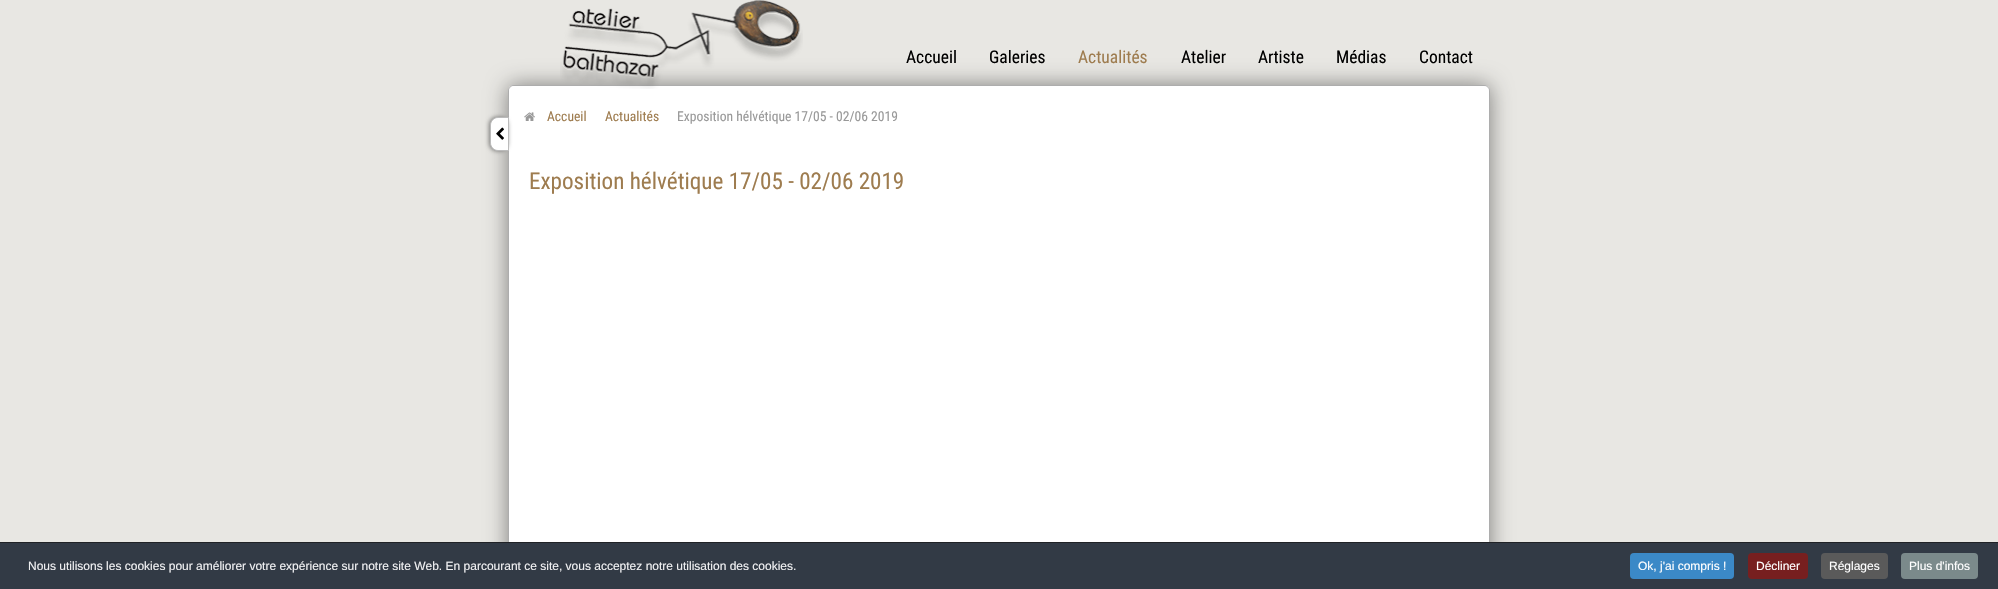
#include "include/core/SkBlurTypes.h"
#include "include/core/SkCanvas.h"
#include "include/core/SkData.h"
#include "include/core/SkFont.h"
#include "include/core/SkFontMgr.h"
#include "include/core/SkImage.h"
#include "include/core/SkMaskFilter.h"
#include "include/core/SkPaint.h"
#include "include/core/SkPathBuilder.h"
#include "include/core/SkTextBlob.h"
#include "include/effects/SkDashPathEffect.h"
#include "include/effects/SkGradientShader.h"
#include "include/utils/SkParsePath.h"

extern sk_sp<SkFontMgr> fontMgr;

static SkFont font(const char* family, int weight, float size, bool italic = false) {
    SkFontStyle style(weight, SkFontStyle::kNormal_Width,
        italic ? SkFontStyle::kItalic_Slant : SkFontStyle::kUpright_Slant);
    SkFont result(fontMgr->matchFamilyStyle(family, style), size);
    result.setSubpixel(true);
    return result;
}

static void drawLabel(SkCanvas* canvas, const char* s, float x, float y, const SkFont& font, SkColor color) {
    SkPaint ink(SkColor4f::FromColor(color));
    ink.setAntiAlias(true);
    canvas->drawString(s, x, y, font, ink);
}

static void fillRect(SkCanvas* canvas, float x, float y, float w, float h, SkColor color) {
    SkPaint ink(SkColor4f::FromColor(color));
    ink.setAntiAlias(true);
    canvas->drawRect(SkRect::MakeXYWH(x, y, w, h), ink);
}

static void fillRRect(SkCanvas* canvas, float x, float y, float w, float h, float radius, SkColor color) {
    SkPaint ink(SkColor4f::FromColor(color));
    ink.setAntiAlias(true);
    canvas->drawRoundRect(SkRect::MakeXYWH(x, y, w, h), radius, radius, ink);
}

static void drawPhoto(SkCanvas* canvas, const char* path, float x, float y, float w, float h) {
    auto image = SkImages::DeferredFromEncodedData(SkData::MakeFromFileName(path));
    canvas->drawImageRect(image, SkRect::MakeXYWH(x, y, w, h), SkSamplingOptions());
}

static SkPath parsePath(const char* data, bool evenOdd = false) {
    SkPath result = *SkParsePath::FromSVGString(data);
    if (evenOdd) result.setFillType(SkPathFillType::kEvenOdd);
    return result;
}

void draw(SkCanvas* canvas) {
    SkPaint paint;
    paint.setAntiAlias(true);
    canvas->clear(0xFFE8E7E3);
    paint.setColor(0x73000000);
    paint.setMaskFilter(SkMaskFilter::MakeBlur(kNormal_SkBlurStyle, 11));
    canvas->drawRoundRect(SkRect::MakeXYWH(508, 85, 982, 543), 6, 6, paint);
    paint.setMaskFilter(nullptr);
    fillRRect(canvas, 508, 85, 982, 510, 6, 0xFFFFFFFF);
    paint.setStroke(true);
    paint.setStrokeWidth(1);
    paint.setColor(0x52000000);
    canvas->drawRoundRect(SkRect::MakeXYWH(508.5f, 85.5f, 981, 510), 5.5f, 5.5f, paint);
    paint.setStroke(false);
    {
        const SkColor colors[] = {0xF2FFFFFF, 0xF2FFFFFF, 0xB0FFFFFF};
        const float stops[] = {0, 0.25f, 1};
        const SkPoint ends[] = {{509, 381}, {1489, 381}};
        paint.setShader(SkGradientShader::MakeLinear(ends, colors, stops, 3, SkTileMode::kClamp));
        paint.setAlpha(255);
    }
    canvas->drawRoundRect(SkRect::MakeXYWH(509, 86, 980, 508), 5, 5, paint);
    drawPhoto(canvas, "assets/img1.png", 560, 0, 243, 89);
    SkFont font1 = font("Roboto Condensed", 400, 17.5f);
    drawLabel(canvas, "Accueil", 906, 63, font1, 0xFF000000);
    drawLabel(canvas, "Galeries", 989, 63, font1, 0xFF000000);
    drawLabel(canvas, "Actualités", 1078, 63, font1, 0xFF9E7C4F);
    drawLabel(canvas, "Atelier", 1181, 63, font1, 0xFF000000);
    drawLabel(canvas, "Artiste", 1258, 63, font1, 0xFF000000);
    drawLabel(canvas, "Médias", 1336, 63, font1, 0xFF000000);
    drawLabel(canvas, "Contact", 1419, 63, font1, 0xFF000000);
    paint.setShader(nullptr);
    paint.setColor(0x73000000);
    paint.setMaskFilter(SkMaskFilter::MakeBlur(kNormal_SkBlurStyle, 2));
    canvas->drawRoundRect(SkRect::MakeXYWH(489, 117, 19, 34), 8, 8, paint);
    paint.setMaskFilter(nullptr);
    paint.setColor(0xFFFFFFFF);
    canvas->drawPath(parsePath("M498 117.5H508.5V150.5H498C494 150.5 490.5 147 490.5 143V125C490.5 121 494 117.5 498 117.5Z"), paint);
    paint.setStroke(true);
    paint.setColor(0xFFBBBBBB);
    canvas->drawPath(parsePath("M498 117.5H508.5V150.5H498C494 150.5 490.5 147 490.5 143V125C490.5 121 494 117.5 498 117.5Z"), paint);
    drawPhoto(canvas, "assets/img2.png", 496, 127, 8, 13);
    drawPhoto(canvas, "assets/img3.png", 524, 112, 11, 9);
    SkFont font2 = font("Roboto Condensed", 400, 13.6f);
    drawLabel(canvas, "Accueil", 547, 121, font2, 0xFF9E7C4F);
    drawLabel(canvas, "Actualités", 605, 121, font2, 0xFF9E7C4F);
    drawLabel(canvas, "Exposition hélvétique 17/05 - 02/06 2019", 677, 121, font2, 0xFF999999);
    SkFont font3 = font("Roboto Condensed", 400, 23.1f);
    drawLabel(canvas, "Exposition hélvétique 17/05 - 02/06 2019", 529, 189, font3, 0xFF9E7C4F);
    fillRect(canvas, 0, 543, 1998, 46, 0xFF323A45);
    fillRect(canvas, 0, 542, 1998, 1, 0xFF202226);
    SkFont font4 = font("Liberation Sans", 400, 12);
    drawLabel(canvas, "Nous utilisons les cookies pour améliorer votre expérience sur notre site Web. En parcourant ce site, vous acceptez notre utilisation des cookies.", 28, 570, font4, 0xFFF1F1F3);
    fillRRect(canvas, 1630, 553, 104, 26, 4, 0xFF3B89C7);
    drawLabel(canvas, "Ok, j'ai compris !", 1638, 570, font4, 0xFFFFFFFF);
    fillRRect(canvas, 1748, 553, 60, 26, 4, 0xFF771F1F);
    drawLabel(canvas, "Décliner", 1756, 570, font4, 0xFFFFFFFF);
    fillRRect(canvas, 1821, 553, 67, 26, 4, 0xFF5A5A5A);
    drawLabel(canvas, "Réglages", 1829, 570, font4, 0xFFFFFFFF);
    fillRRect(canvas, 1901, 553, 77, 26, 4, 0xFF7B8A8B);
    drawLabel(canvas, "Plus d'infos", 1909, 570, font4, 0xFFFFFFFF);
}
